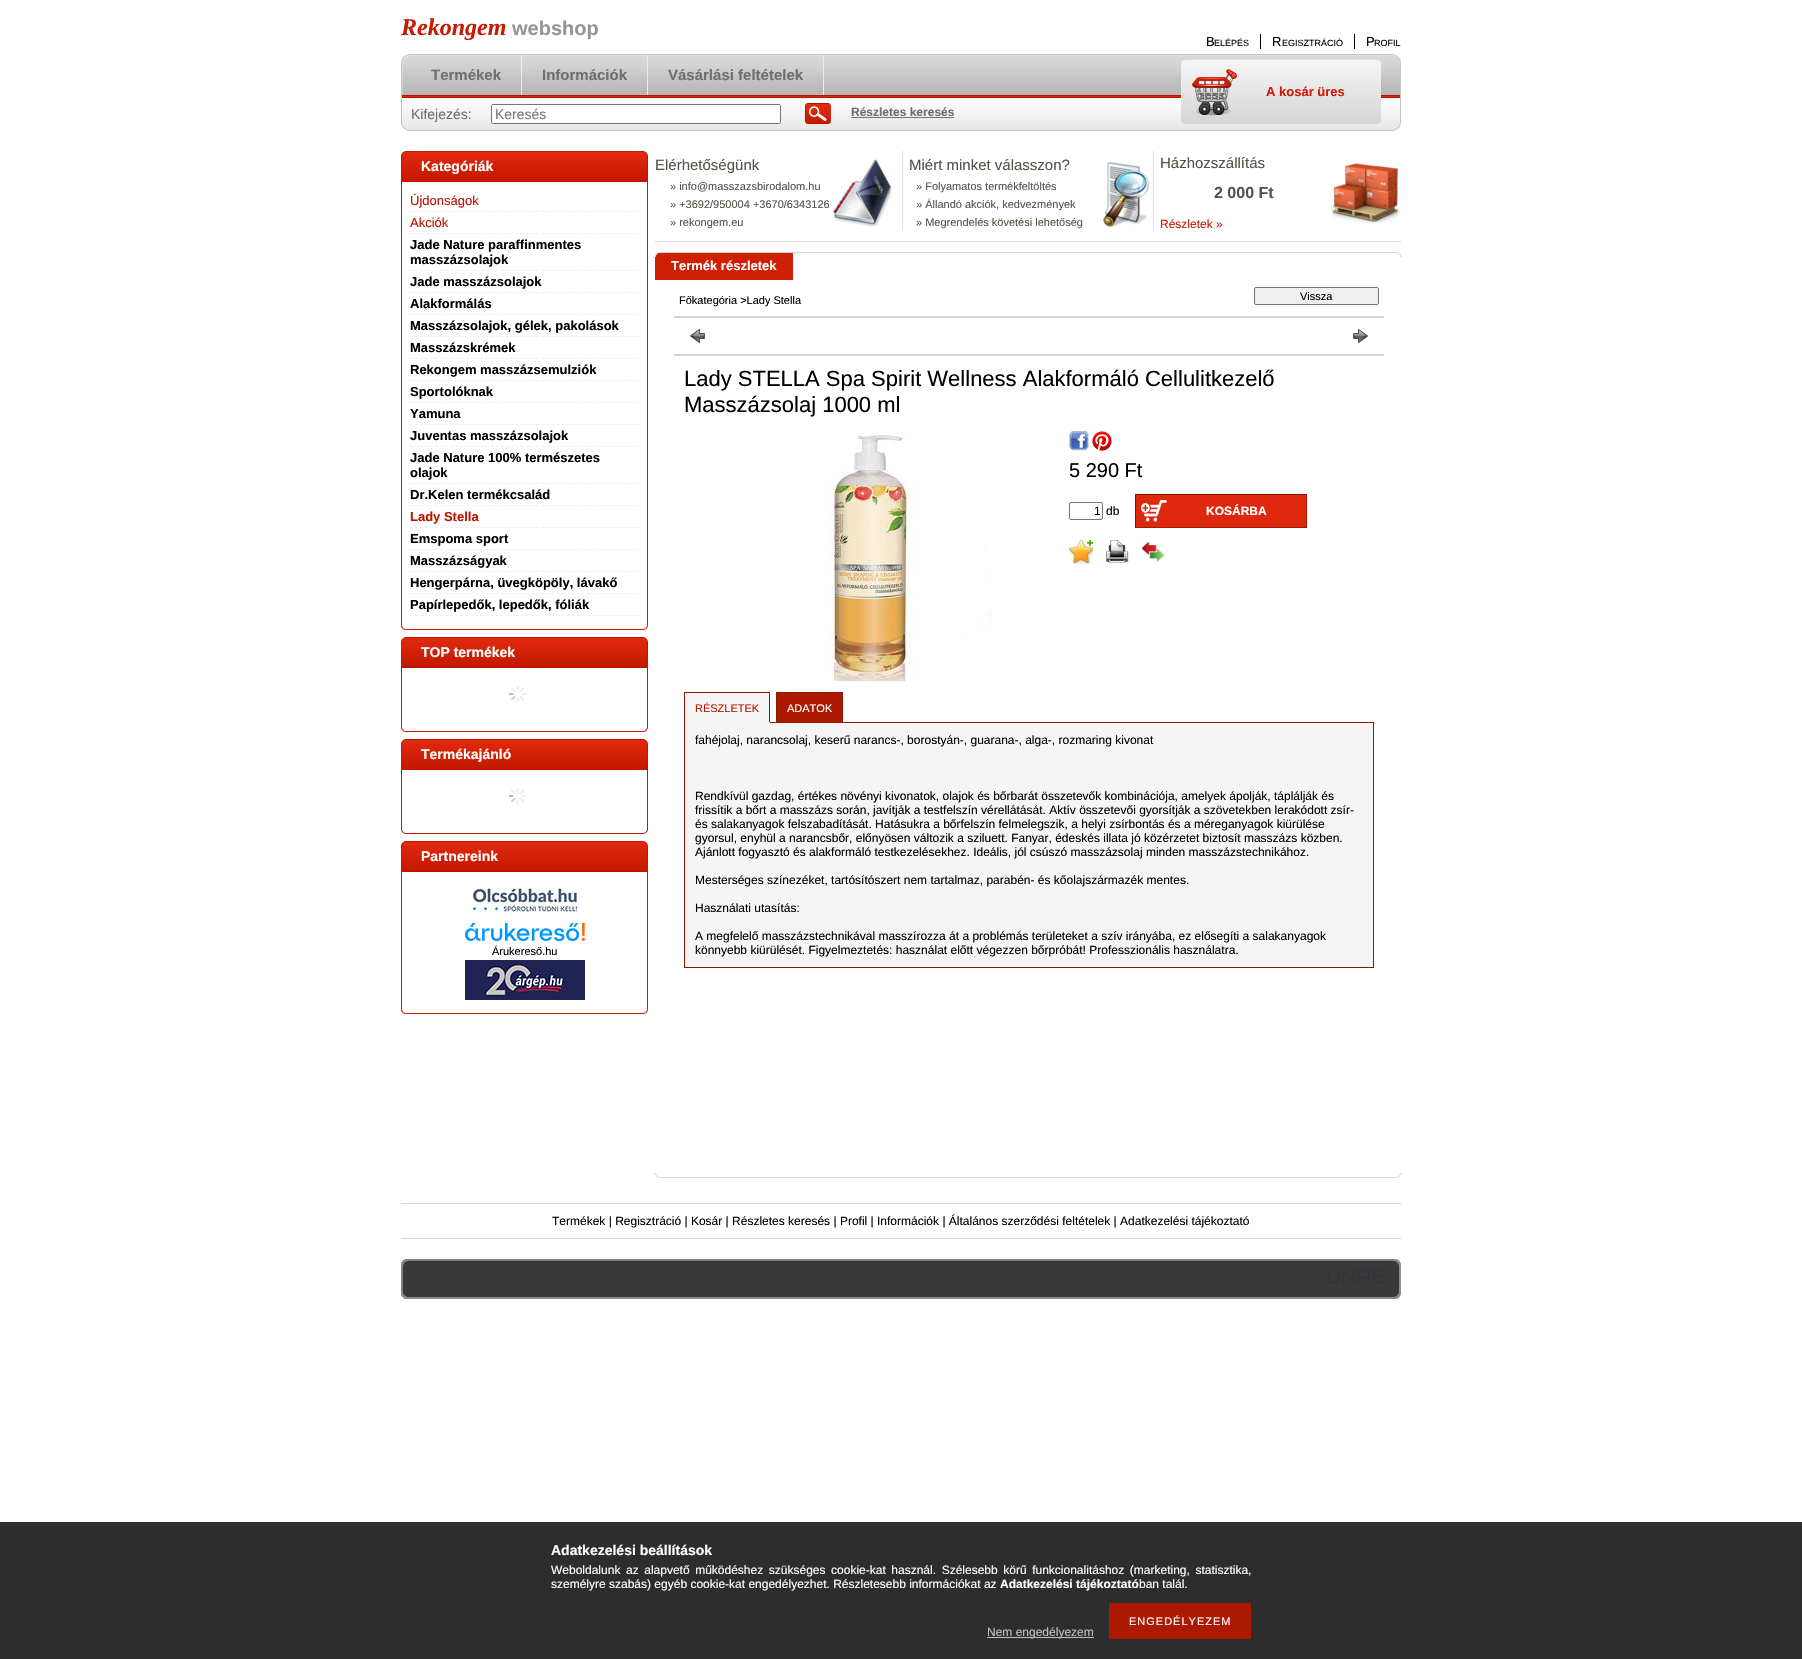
#include "include/core/SkBlurTypes.h"
#include "include/core/SkCanvas.h"
#include "include/core/SkData.h"
#include "include/core/SkFont.h"
#include "include/core/SkFontMgr.h"
#include "include/core/SkImage.h"
#include "include/core/SkMaskFilter.h"
#include "include/core/SkPaint.h"
#include "include/core/SkPathBuilder.h"
#include "include/core/SkTextBlob.h"
#include "include/effects/SkDashPathEffect.h"
#include "include/effects/SkGradientShader.h"
#include "include/utils/SkParsePath.h"

extern sk_sp<SkFontMgr> fontMgr;

static SkFont font(const char* family, int weight, float size, bool italic = false) {
    SkFontStyle style(weight, SkFontStyle::kNormal_Width,
        italic ? SkFontStyle::kItalic_Slant : SkFontStyle::kUpright_Slant);
    SkFont result(fontMgr->matchFamilyStyle(family, style), size);
    result.setSubpixel(true);
    return result;
}

static void drawLabel(SkCanvas* canvas, const char* s, float x, float y, const SkFont& font, SkColor color) {
    SkPaint ink(SkColor4f::FromColor(color));
    ink.setAntiAlias(true);
    canvas->drawString(s, x, y, font, ink);
}

static void drawTracked(SkCanvas* canvas, const char* s, float x, float y, const SkFont& font, const SkPaint& ink, float letter, float word) {
    std::vector<SkGlyphID> glyphs(font.countText(s, strlen(s), SkTextEncoding::kUTF8));
    std::vector<float> xs(glyphs.size());
    font.textToGlyphs(s, strlen(s), SkTextEncoding::kUTF8, glyphs);
    font.getXPos(glyphs, xs, x);
    float extra = 0;
    for (size_t i = 0; i < glyphs.size(); i++) {
        xs[i] += extra;
        extra += letter + word * (glyphs[i] == font.unicharToGlyph(' '));
    }
    canvas->drawTextBlob(SkTextBlob::MakeFromPosHGlyphs(glyphs, xs, y, font), 0, 0, ink);
}

static void fillRect(SkCanvas* canvas, float x, float y, float w, float h, SkColor color) {
    SkPaint ink(SkColor4f::FromColor(color));
    ink.setAntiAlias(true);
    canvas->drawRect(SkRect::MakeXYWH(x, y, w, h), ink);
}

static void drawPhoto(SkCanvas* canvas, const char* path, float x, float y, float w, float h) {
    auto image = SkImages::DeferredFromEncodedData(SkData::MakeFromFileName(path));
    canvas->drawImageRect(image, SkRect::MakeXYWH(x, y, w, h), SkSamplingOptions());
}

static SkPath parsePath(const char* data, bool evenOdd = false) {
    SkPath result = *SkParsePath::FromSVGString(data);
    if (evenOdd) result.setFillType(SkPathFillType::kEvenOdd);
    return result;
}

void draw(SkCanvas* canvas) {
    SkPaint paint;
    paint.setAntiAlias(true);
    canvas->clear(0xFFFFFFFF);
    SkFont font1 = font("Liberation Serif", 700, 24, true);
    drawLabel(canvas, "Rekongem", 401, 35, font1, 0xFFC61A02);
    SkFont font2 = font("Liberation Sans", 700, 20);
    drawLabel(canvas, "webshop", 512, 35, font2, 0xFF959595);
    SkFont font3 = font("Liberation Sans", 400, 13);
    drawLabel(canvas, "B", 1206, 46, font3, 0xFF000000);
    SkFont font4 = font("Liberation Sans", 400, 9);
    drawLabel(canvas, "ELÉPÉS", 1214, 46, font4, 0xFF000000);
    fillRect(canvas, 1260, 34, 1, 15, 0xFF000000);
    drawLabel(canvas, "R", 1272, 46, font3, 0xFF000000);
    drawLabel(canvas, "EGISZTRÁCIÓ", 1282, 46, font4, 0xFF000000);
    fillRect(canvas, 1354, 34, 1, 15, 0xFF000000);
    drawLabel(canvas, "P", 1366, 46, font3, 0xFF000000);
    drawLabel(canvas, "ROFIL", 1374, 46, font4, 0xFF000000);
    drawPhoto(canvas, "assets/img1.png", 401, 54, 10, 77);
    drawPhoto(canvas, "assets/img2.png", 411, 54, 980, 77);
    fillRect(canvas, 521, 55, 1, 40, 0xFFECECEC);
    SkFont font5 = font("Liberation Sans", 700, 15);
    drawLabel(canvas, "Termékek", 431, 80, font5, 0xFF6C6E71);
    fillRect(canvas, 647, 55, 1, 40, 0xFFECECEC);
    drawLabel(canvas, "Információk", 542, 80, font5, 0xFF6C6E71);
    fillRect(canvas, 823, 55, 1, 40, 0xFFECECEC);
    drawLabel(canvas, "Vásárlási feltételek", 668, 80, font5, 0xFF6C6E71);
    SkFont font6 = font("Liberation Sans", 400, 14);
    drawLabel(canvas, "Kifejezés:", 411, 119, font6, 0xFF6C6E71);
    paint.setColor(0xFFFFFFFF);
    canvas->drawRoundRect(SkRect::MakeXYWH(491.5f, 104.5f, 289, 19), 1.5f, 1.5f, paint);
    paint.setStroke(true);
    paint.setStrokeWidth(1);
    paint.setColor(0xFF767676);
    canvas->drawRoundRect(SkRect::MakeXYWH(491.5f, 104.5f, 289, 19), 1.5f, 1.5f, paint);
    drawLabel(canvas, "Keresés", 495, 119, font6, 0xFF757575);
    drawPhoto(canvas, "assets/img3.png", 805, 103, 26, 21);
    SkFont font7 = font("Liberation Sans", 700, 12);
    drawLabel(canvas, "Részletes keresés", 851, 116, font7, 0xFF6C6E71);
    fillRect(canvas, 851, 117, 103, 1, 0xFF6C6E71);
    drawPhoto(canvas, "assets/img4.png", 1181, 59, 6, 65);
    drawPhoto(canvas, "assets/img5.png", 1187, 59, 188, 65);
    drawPhoto(canvas, "assets/img6.png", 1192, 69, 45, 47);
    SkFont font8 = font("Liberation Sans", 700, 13);
    drawLabel(canvas, "A kosár üres", 1266, 96, font8, 0xFFD11A08);
    drawPhoto(canvas, "assets/img7.png", 1375, 59, 6, 65);
    drawPhoto(canvas, "assets/img8.png", 1391, 54, 10, 77);
    drawPhoto(canvas, "assets/img9.png", 655, 1173, 746, 5);
    drawPhoto(canvas, "assets/img10.png", 401, 151, 247, 31);
    SkFont font9 = font("Liberation Sans", 700, 14);
    drawLabel(canvas, "Kategóriák", 421, 171, font9, 0xFFFFFFFF);
    fillRect(canvas, 647, 182, 1, 442, 0xFFC21800);
    fillRect(canvas, 401, 182, 1, 442, 0xFFC21800);
    paint.setColor(0xFFEFEFEF);
    paint.setPathEffect(SkDashPathEffect::Make({{3, 2.04f}}, 0));
    canvas->drawPath(parsePath("M410 211.5H640"), paint);
    paint.setPathEffect(nullptr);
    drawLabel(canvas, "Újdonságok", 410, 205, font3, 0xFFBC1300);
    paint.setPathEffect(SkDashPathEffect::Make({{3, 2.04f}}, 0));
    canvas->drawPath(parsePath("M410 233.5H640"), paint);
    paint.setPathEffect(nullptr);
    drawLabel(canvas, "Akciók", 410, 227, font3, 0xFFBC1300);
    paint.setPathEffect(SkDashPathEffect::Make({{3, 2.04f}}, 0));
    canvas->drawPath(parsePath("M410 270.5H640"), paint);
    paint.setPathEffect(nullptr);
    drawLabel(canvas, "Jade Nature paraffinmentes", 410, 249, font8, 0xFF000000);
    drawLabel(canvas, "masszázsolajok", 410, 264, font8, 0xFF000000);
    paint.setPathEffect(SkDashPathEffect::Make({{3, 2.04f}}, 0));
    canvas->drawPath(parsePath("M410 292.5H640"), paint);
    paint.setPathEffect(nullptr);
    drawLabel(canvas, "Jade masszázsolajok", 410, 286, font8, 0xFF000000);
    paint.setPathEffect(SkDashPathEffect::Make({{3, 2.04f}}, 0));
    canvas->drawPath(parsePath("M410 314.5H640"), paint);
    paint.setPathEffect(nullptr);
    drawLabel(canvas, "Alakformálás", 410, 308, font8, 0xFF000000);
    paint.setPathEffect(SkDashPathEffect::Make({{3, 2.04f}}, 0));
    canvas->drawPath(parsePath("M410 336.5H640"), paint);
    paint.setPathEffect(nullptr);
    drawLabel(canvas, "Masszázsolajok, gélek, pakolások", 410, 330, font8, 0xFF000000);
    paint.setPathEffect(SkDashPathEffect::Make({{3, 2.04f}}, 0));
    canvas->drawPath(parsePath("M410 358.5H640"), paint);
    paint.setPathEffect(nullptr);
    drawLabel(canvas, "Masszázskrémek", 410, 352, font8, 0xFF000000);
    paint.setPathEffect(SkDashPathEffect::Make({{3, 2.04f}}, 0));
    canvas->drawPath(parsePath("M410 380.5H640"), paint);
    paint.setPathEffect(nullptr);
    drawLabel(canvas, "Rekongem masszázsemulziók", 410, 374, font8, 0xFF000000);
    paint.setPathEffect(SkDashPathEffect::Make({{3, 2.04f}}, 0));
    canvas->drawPath(parsePath("M410 402.5H640"), paint);
    paint.setPathEffect(nullptr);
    drawLabel(canvas, "Sportolóknak", 410, 396, font8, 0xFF000000);
    paint.setPathEffect(SkDashPathEffect::Make({{3, 2.04f}}, 0));
    canvas->drawPath(parsePath("M410 424.5H640"), paint);
    paint.setPathEffect(nullptr);
    drawLabel(canvas, "Yamuna", 410, 418, font8, 0xFF000000);
    paint.setPathEffect(SkDashPathEffect::Make({{3, 2.04f}}, 0));
    canvas->drawPath(parsePath("M410 446.5H640"), paint);
    paint.setPathEffect(nullptr);
    drawLabel(canvas, "Juventas masszázsolajok", 410, 440, font8, 0xFF000000);
    paint.setPathEffect(SkDashPathEffect::Make({{3, 2.04f}}, 0));
    canvas->drawPath(parsePath("M410 483.5H640"), paint);
    paint.setPathEffect(nullptr);
    drawLabel(canvas, "Jade Nature 100% természetes", 410, 462, font8, 0xFF000000);
    drawLabel(canvas, "olajok", 410, 477, font8, 0xFF000000);
    paint.setPathEffect(SkDashPathEffect::Make({{3, 2.04f}}, 0));
    canvas->drawPath(parsePath("M410 505.5H640"), paint);
    paint.setPathEffect(nullptr);
    drawLabel(canvas, "Dr.Kelen termékcsalád", 410, 499, font8, 0xFF000000);
    paint.setPathEffect(SkDashPathEffect::Make({{3, 2.04f}}, 0));
    canvas->drawPath(parsePath("M410 527.5H640"), paint);
    paint.setPathEffect(nullptr);
    drawLabel(canvas, "Lady Stella", 410, 521, font8, 0xFFBC1300);
    paint.setPathEffect(SkDashPathEffect::Make({{3, 2.04f}}, 0));
    canvas->drawPath(parsePath("M410 549.5H640"), paint);
    paint.setPathEffect(nullptr);
    drawLabel(canvas, "Emspoma sport", 410, 543, font8, 0xFF000000);
    paint.setPathEffect(SkDashPathEffect::Make({{3, 2.04f}}, 0));
    canvas->drawPath(parsePath("M410 571.5H640"), paint);
    paint.setPathEffect(nullptr);
    drawLabel(canvas, "Masszázságyak", 410, 565, font8, 0xFF000000);
    paint.setPathEffect(SkDashPathEffect::Make({{3, 2.04f}}, 0));
    canvas->drawPath(parsePath("M410 593.5H640"), paint);
    paint.setPathEffect(nullptr);
    drawLabel(canvas, "Hengerpárna, üvegköpöly, lávakő", 410, 587, font8, 0xFF000000);
    paint.setPathEffect(SkDashPathEffect::Make({{3, 2.04f}}, 0));
    canvas->drawPath(parsePath("M410 615.5H640"), paint);
    paint.setPathEffect(nullptr);
    drawLabel(canvas, "Papírlepedők, lepedők, fóliák", 410, 609, font8, 0xFF000000);
    drawPhoto(canvas, "assets/img11.png", 401, 624, 247, 6);
    drawPhoto(canvas, "assets/img10.png", 401, 637, 247, 31);
    drawLabel(canvas, "TOP termékek", 421, 657, font9, 0xFFFFFFFF);
    fillRect(canvas, 647, 668, 1, 58, 0xFFC21800);
    fillRect(canvas, 401, 668, 1, 58, 0xFFC21800);
    drawPhoto(canvas, "assets/img12.png", 509, 686, 17, 16);
    drawPhoto(canvas, "assets/img11.png", 401, 726, 247, 6);
    drawPhoto(canvas, "assets/img10.png", 401, 739, 247, 31);
    drawLabel(canvas, "Termékajánló", 421, 759, font9, 0xFFFFFFFF);
    fillRect(canvas, 647, 770, 1, 58, 0xFFC21800);
    fillRect(canvas, 401, 770, 1, 58, 0xFFC21800);
    drawPhoto(canvas, "assets/img12.png", 509, 788, 17, 16);
    drawPhoto(canvas, "assets/img11.png", 401, 828, 247, 6);
    drawPhoto(canvas, "assets/img10.png", 401, 841, 247, 31);
    drawLabel(canvas, "Partnereink", 421, 861, font9, 0xFFFFFFFF);
    fillRect(canvas, 647, 872, 1, 136, 0xFFC21800);
    fillRect(canvas, 401, 872, 1, 136, 0xFFC21800);
    drawPhoto(canvas, "assets/img13.png", 473, 888, 105, 24);
    drawPhoto(canvas, "assets/img14.png", 465, 923, 120, 18);
    SkFont font10 = font("Liberation Sans", 400, 11);
    drawLabel(canvas, "Árukereső.hu", 492, 955, font10, 0xFF000000);
    drawPhoto(canvas, "assets/img15.png", 465, 960, 120, 40);
    drawPhoto(canvas, "assets/img11.png", 401, 1008, 247, 6);
    fillRect(canvas, 655, 241, 746, 1, 0xFFE0E0E0);
    SkFont font11 = font("Liberation Sans", 400, 15);
    drawLabel(canvas, "Elérhetőségünk", 655, 170, font11, 0xFF565247);
    drawLabel(canvas, "» info@masszazsbirodalom.hu", 670, 190, font10, 0xFF565247);
    drawLabel(canvas, "» +3692/950004 +3670/6343126", 670, 208, font10, 0xFF565247);
    drawLabel(canvas, "» rekongem.eu", 670, 226, font10, 0xFF565247);
    drawPhoto(canvas, "assets/img16.png", 833, 159, 59, 68);
    fillRect(canvas, 902, 151, 1, 80, 0xFFE0E0E0);
    drawLabel(canvas, "Miért minket válasszon?", 909, 170, font11, 0xFF565247);
    drawLabel(canvas, "» Folyamatos termékfeltöltés", 916, 190, font10, 0xFF565247);
    drawLabel(canvas, "» Állandó akciók, kedvezmények", 916, 208, font10, 0xFF565247);
    drawLabel(canvas, "» Megrendelés követési lehetőség", 916, 226, font10, 0xFF565247);
    drawPhoto(canvas, "assets/img17.png", 1103, 162, 46, 65);
    fillRect(canvas, 1153, 151, 1, 80, 0xFFE0E0E0);
    drawLabel(canvas, "Házhozszállítás", 1160, 168, font11, 0xFF565247);
    SkFont font12 = font("Liberation Sans", 700, 16);
    drawLabel(canvas, "2 000 Ft", 1214, 198, font12, 0xFF565247);
    SkFont font13 = font("Liberation Sans", 400, 12);
    drawLabel(canvas, "Részletek »", 1160, 228, font13, 0xFFC61A02);
    drawPhoto(canvas, "assets/img18.png", 1331, 163, 69, 60);
    fillRect(canvas, 655, 253, 138, 27, 0xFFCF2006);
    drawPhoto(canvas, "assets/img19.png", 655, 252, 746, 5);
    drawLabel(canvas, "Termék részletek", 671, 270, font8, 0xFFFFFFFF);
    drawLabel(canvas, "Főkategória >Lady Stella", 679, 304, font10, 0xFF000000);
    paint.setStroke(false);
    canvas->drawRoundRect(SkRect::MakeXYWH(1254.5f, 287.5f, 124, 17), 1.5f, 1.5f, paint);
    paint.setStroke(true);
    paint.setColor(0xFF767676);
    canvas->drawRoundRect(SkRect::MakeXYWH(1254.5f, 287.5f, 124, 17), 1.5f, 1.5f, paint);
    drawLabel(canvas, "Vissza", 1300, 300, font10, 0xFF000000);
    fillRect(canvas, 674, 316, 710, 2, 0xFFD6D6D6);
    drawPhoto(canvas, "assets/img20.png", 690, 329, 15, 14);
    drawPhoto(canvas, "assets/img21.png", 1353, 329, 15, 14);
    fillRect(canvas, 674, 354, 710, 2, 0xFFD6D6D6);
    SkFont font14 = font("Liberation Sans", 400, 22);
    drawLabel(canvas, "Lady STELLA Spa Spirit Wellness Alakformáló Cellulitkezelő", 684, 386, font14, 0xFF000000);
    drawLabel(canvas, "Masszázsolaj 1000 ml", 684, 412, font14, 0xFF000000);
    drawPhoto(canvas, "assets/img22.png", 825, 431, 167, 250);
    drawPhoto(canvas, "assets/img23.png", 1069, 431, 20, 20);
    drawPhoto(canvas, "assets/img24.png", 1092, 431, 20, 20);
    SkFont font15 = font("Liberation Sans", 400, 20);
    drawLabel(canvas, "5 290 Ft", 1069, 477, font15, 0xFF000000);
    canvas->drawRoundRect(SkRect::MakeXYWH(1069.5f, 502.5f, 33, 17), 1.5f, 1.5f, paint);
    drawLabel(canvas, "1", 1094, 515, font13, 0xFF000000);
    drawLabel(canvas, "db", 1106, 515, font13, 0xFF000000);
    fillRect(canvas, 1136, 495, 170, 32, 0xFFDE280D);
    drawPhoto(canvas, "assets/img25.png", 1141, 500, 26, 22);
    fillRect(canvas, 1135, 494, 172, 1, 0xFF7B1203);
    fillRect(canvas, 1306, 494, 1, 34, 0xFFA21A06);
    fillRect(canvas, 1135, 527, 172, 1, 0xFFA21A06);
    fillRect(canvas, 1135, 494, 1, 34, 0xFF7B1203);
    drawLabel(canvas, "KOSÁRBA", 1206, 515, font7, 0xFFFFFFFF);
    drawPhoto(canvas, "assets/img26.png", 1069, 540, 24, 24);
    drawPhoto(canvas, "assets/img27.png", 1106, 540, 23, 23);
    drawPhoto(canvas, "assets/img28.png", 1142, 542, 23, 20);
    fillRect(canvas, 685, 693, 84, 29, 0xFFF5F5F5);
    fillRect(canvas, 684, 692, 86, 1, 0xFF911503);
    paint.setStroke(false);
    paint.setColor(0xFFF5F5F5);
    canvas->drawRect(SkRect::MakeXYWH(684.5f, 722.5f, 689, 245), paint);
    paint.setStroke(true);
    paint.setColor(0xFF911503);
    canvas->drawRect(SkRect::MakeXYWH(684.5f, 722.5f, 689, 245), paint);
    fillRect(canvas, 769, 692, 1, 31, 0xFF911503);
    fillRect(canvas, 684, 722, 86, 1, 0xFFF5F5F5);
    fillRect(canvas, 684, 692, 1, 31, 0xFF911503);
    drawLabel(canvas, "RÉSZLETEK", 695, 712, font10, 0xFFBC1300);
    paint.setStroke(false);
    paint.setColor(0xFFAB1903);
    canvas->drawRect(SkRect::MakeXYWH(776.5f, 692.5f, 66, 30), paint);
    paint.setStroke(true);
    paint.setColor(0xFF911503);
    canvas->drawRect(SkRect::MakeXYWH(776.5f, 692.5f, 66, 30), paint);
    drawLabel(canvas, "ADATOK", 787, 712, font10, 0xFFFFFFFF);
    drawLabel(canvas, "fahéjolaj, narancsolaj, keserű narancs-, borostyán-, guarana-, alga-, rozmaring kivonat", 695, 744, font13, 0xFF000000);
    drawLabel(canvas, "Rendkívül gazdag, értékes növényi kivonatok, olajok és bőrbarát összetevők kombinációja, amelyek ápolják, táplálják és", 695, 800, font13, 0xFF000000);
    drawLabel(canvas, "frissítik a bőrt a masszázs során, javítják a testfelszín vérellátását. Aktív összetevői gyorsítják a szövetekben lerakódott zsír-", 695, 814, font13, 0xFF000000);
    drawLabel(canvas, "és salakanyagok felszabadítását. Hatásukra a bőrfelszín felmelegszik, a helyi zsírbontás és a méreganyagok kiürülése", 695, 828, font13, 0xFF000000);
    drawLabel(canvas, "gyorsul, enyhül a narancsbőr, előnyösen változik a sziluett. Fanyar, édeskés illata jó közérzetet biztosít masszázs közben.", 695, 842, font13, 0xFF000000);
    drawLabel(canvas, "Ajánlott fogyasztó és alakformáló testkezelésekhez. Ideális, jól csúszó masszázsolaj minden masszázstechnikához.", 695, 856, font13, 0xFF000000);
    drawLabel(canvas, "Mesterséges színezéket, tartósítószert nem tartalmaz, parabén- és kőolajszármazék mentes.", 695, 884, font13, 0xFF000000);
    drawLabel(canvas, "Használati utasítás:", 695, 912, font13, 0xFF000000);
    drawLabel(canvas, "A megfelelő masszázstechnikával masszírozza át a problémás területeket a szív irányába, ez elősegíti a salakanyagok", 695, 940, font13, 0xFF000000);
    drawLabel(canvas, "könnyebb kiürülését. Figyelmeztetés: használat előtt végezzen bőrpróbát! Professzionális használatra.", 695, 954, font13, 0xFF000000);
    fillRect(canvas, 401, 1203, 1000, 1, 0xFFD6D6D6);
    fillRect(canvas, 401, 1238, 1000, 1, 0xFFD6D6D6);
    drawLabel(canvas, "Termékek | Regisztráció | Kosár | Részletes keresés | Profil | Információk | Általános szerződési feltételek | Adatkezelési tájékoztató", 552, 1225, font13, 0xFF000000);
    drawPhoto(canvas, "assets/img29.png", 401, 1259, 1000, 40);
    drawPhoto(canvas, "assets/img30.png", 1327, 1269, 58, 15);
    fillRect(canvas, 0, 1522, 1802, 137, 0xFF2D2D2D);
    drawLabel(canvas, "Adatkezelési beállítások", 551, 1555, font9, 0xFFFFFFFF);
    paint.setStroke(false);
    paint.setColor(0xFFFFFFFF);
    drawTracked(canvas, "Weboldalunk az alapvető működéshez szükséges cookie-kat használ. Szélesebb körű funkcionalitáshoz (marketing, statisztika,", 551, 1574, font13, paint, 0, 2.25f);
    drawLabel(canvas, "személyre szabás) egyéb cookie-kat engedélyezhet. Részletesebb információkat az", 551, 1588, font13, 0xFFFFFFFF);
    drawLabel(canvas, "Adatkezelési tájékoztató", 1000, 1588, font7, 0xFFFFFFFF);
    drawLabel(canvas, "ban talál.", 1139, 1588, font13, 0xFFFFFFFF);
    fillRect(canvas, 1109, 1603, 142, 36, 0xFFAB1903);
    drawTracked(canvas, "ENGEDÉLYEZEM", 1129, 1625, font10, paint, 1, 0);
    fillRect(canvas, 987, 1637, 107, 1, 0xFFC0C0C0);
    drawLabel(canvas, "Nem engedélyezem", 987, 1636, font13, 0xFFC0C0C0);
}
